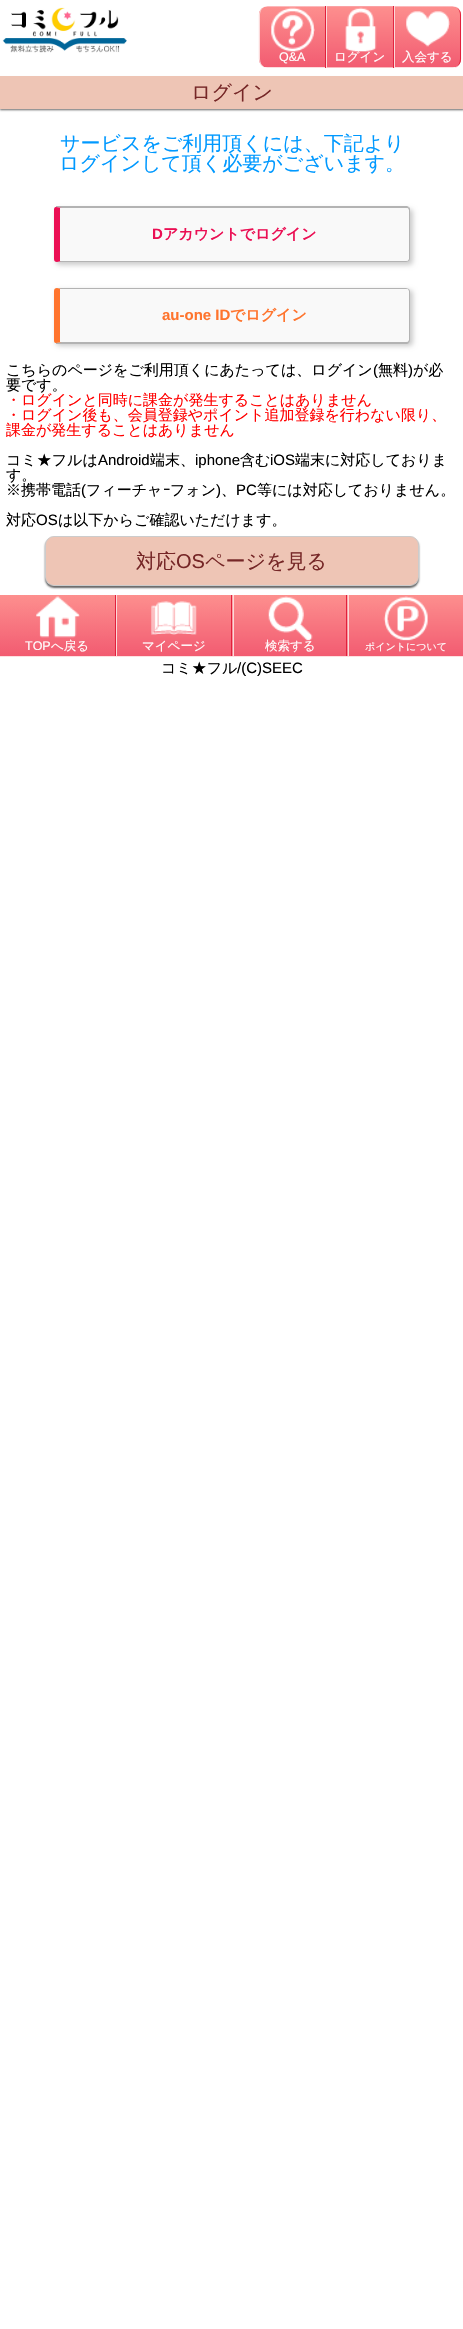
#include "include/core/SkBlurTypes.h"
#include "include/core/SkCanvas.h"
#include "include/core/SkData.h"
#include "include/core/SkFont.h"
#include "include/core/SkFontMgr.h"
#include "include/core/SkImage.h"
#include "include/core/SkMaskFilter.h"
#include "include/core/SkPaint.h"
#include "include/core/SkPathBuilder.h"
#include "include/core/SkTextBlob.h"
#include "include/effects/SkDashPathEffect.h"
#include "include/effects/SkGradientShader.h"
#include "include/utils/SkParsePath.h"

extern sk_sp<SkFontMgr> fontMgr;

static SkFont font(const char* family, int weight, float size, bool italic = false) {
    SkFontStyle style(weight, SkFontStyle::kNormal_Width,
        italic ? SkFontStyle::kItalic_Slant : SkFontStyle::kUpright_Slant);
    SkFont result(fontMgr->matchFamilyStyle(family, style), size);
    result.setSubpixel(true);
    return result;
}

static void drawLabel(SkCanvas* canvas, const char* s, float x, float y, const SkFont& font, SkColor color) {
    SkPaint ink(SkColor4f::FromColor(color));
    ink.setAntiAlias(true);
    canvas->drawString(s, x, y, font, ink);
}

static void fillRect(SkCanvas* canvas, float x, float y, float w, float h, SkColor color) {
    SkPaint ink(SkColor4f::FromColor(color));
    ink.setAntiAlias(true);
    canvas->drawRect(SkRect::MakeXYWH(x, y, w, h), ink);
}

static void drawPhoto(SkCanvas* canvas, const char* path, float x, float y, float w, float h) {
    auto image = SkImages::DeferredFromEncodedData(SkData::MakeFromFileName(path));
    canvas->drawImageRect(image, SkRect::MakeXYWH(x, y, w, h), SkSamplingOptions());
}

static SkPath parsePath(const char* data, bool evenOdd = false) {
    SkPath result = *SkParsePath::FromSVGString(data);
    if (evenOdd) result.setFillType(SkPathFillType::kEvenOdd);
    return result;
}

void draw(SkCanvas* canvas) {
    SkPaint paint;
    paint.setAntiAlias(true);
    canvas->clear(0xFFFFFFFF);
    drawPhoto(canvas, "assets/img1.png", 2, 7, 125, 46);
    drawPhoto(canvas, "assets/img2.png", 258, 6, 67, 62);
    fillRect(canvas, 325, 6, 1, 62, 0xFFE2203C);
    paint.setColor(0xFFFBDADA);
    canvas->drawPath(parsePath("M265 68C261 66 259 63 259 59V15C259 11 262 7 266 6C262 7 260 11 260 15V59C260 63 262 66 265 68Z"), paint);
    SkFont font1 = font("Liberation Sans", 400, 12.5f);
    drawLabel(canvas, "Q&A", 279, 61, font1, 0xFFFFFFFF);
    drawPhoto(canvas, "assets/img3.png", 327, 6, 66, 62);
    fillRect(canvas, 393, 6, 1, 62, 0xFFE2203C);
    fillRect(canvas, 326, 6, 1, 62, 0xFFFBDADA);
    SkFont font2 = font("WenQuanYi Zen Hei", 500, 12.5f);
    drawLabel(canvas, "ログイン", 334, 61, font2, 0xFFFFFFFF);
    drawPhoto(canvas, "assets/img4.png", 393, 6, 69, 62);
    paint.setColor(0xFFE2203C);
    canvas->drawPath(parsePath("M455 68C458 66 460 63 460 59V15C460 11 458 7 454 6C458 7 461 11 461 15V59C461 63 459 66 455 68Z"), paint);
    fillRect(canvas, 394, 6, 1, 62, 0xFFFBDADA);
    drawLabel(canvas, "入会する", 402, 61, font2, 0xFFFFFFFF);
    paint.setColor(0xFF666666);
    paint.setMaskFilter(SkMaskFilter::MakeBlur(kNormal_SkBlurStyle, 1));
    canvas->drawRect(SkRect::MakeXYWH(0, 78, 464, 32), paint);
    paint.setMaskFilter(nullptr);
    fillRect(canvas, 0, 76, 463, 33, 0xFFEEC5B5);
    SkFont font3 = font("WenQuanYi Zen Hei", 500, 20);
    drawLabel(canvas, "ログイン", 191, 99, font3, 0xFF762727);
    drawLabel(canvas, "サービスをご利用頂くには、下記より", 60, 150, font3, 0xFF0099FF);
    drawLabel(canvas, "ログインして頂く必要がございます。", 59, 170, font3, 0xFF0099FF);
    paint.setColor(0x33000000);
    paint.setMaskFilter(SkMaskFilter::MakeBlur(kNormal_SkBlurStyle, 2.5f));
    canvas->drawRoundRect(SkRect::MakeXYWH(56, 209, 357, 56), 4, 4, paint);
    paint.setMaskFilter(nullptr);
    paint.setColor(0xFFF9F9F9);
    canvas->drawPath(parsePath("M60 208H406C408 208 409 209 409 210V259C409 260 408 261 406 261H60Z"), paint);
    paint.setColor(0xFFB3B3B3);
    canvas->drawPath(parsePath("M56 207V206H407L409 207L408 208H406H62Z"), paint);
    canvas->drawPath(parsePath("M410 259V210C410 209 410 208 409 207L408 208L409 210V259L408 261H409Z"), paint);
    canvas->drawPath(parsePath("M409 261L406 262H57L61 261H406H408Z"), paint);
    paint.setColor(0xFFEB0F54);
    canvas->drawPath(parsePath("M60 208V261H61L57 262C55 262 54 261 54 259V210C54 209 54 207 56 207L62 208Z"), paint);
    SkFont font4 = font("Liberation Sans", 700, 15);
    drawLabel(canvas, "D", 152, 239, font4, 0xFFEB0F54);
    SkFont font5 = font("WenQuanYi Zen Hei", 700, 15);
    drawLabel(canvas, "アカウントでログイン", 163, 239, font5, 0xFFEB0F54);
    paint.setColor(0x33000000);
    paint.setMaskFilter(SkMaskFilter::MakeBlur(kNormal_SkBlurStyle, 2.5f));
    canvas->drawRoundRect(SkRect::MakeXYWH(56, 290, 357, 56), 4, 4, paint);
    paint.setMaskFilter(nullptr);
    paint.setColor(0xFFF9F9F9);
    canvas->drawPath(parsePath("M60 289H406C408 289 409 290 409 291V340C409 341 408 342 406 342H60Z"), paint);
    paint.setColor(0xFFB3B3B3);
    canvas->drawPath(parsePath("M58 288H57L61 289H406H408H409L406 288Z"), paint);
    canvas->drawPath(parsePath("M409 289L410 291V340L409 343L408 342L409 340V291L408 289Z"), paint);
    canvas->drawPath(parsePath("M56 344V343L62 342H406H408L409 343L407 344Z"), paint);
    paint.setColor(0xFFFF742D);
    canvas->drawPath(parsePath("M60 289H61L57 288C55 288 54 289 54 291V340C54 341 54 343 56 343L62 342H60Z"), paint);
    drawLabel(canvas, "au-one ID", 162, 320, font4, 0xFFFF742D);
    drawLabel(canvas, "でログイン", 230, 320, font5, 0xFFFF742D);
    SkFont font6 = font("WenQuanYi Zen Hei", 500, 15);
    drawLabel(canvas, "こちらのページをご利用頂くにあたっては、ログイン", 6, 375, font6, 0xFF000000);
    SkFont font7 = font("Liberation Sans", 400, 15);
    drawLabel(canvas, "(", 373, 375, font7, 0xFF000000);
    drawLabel(canvas, "無料", 378, 375, font6, 0xFF000000);
    drawLabel(canvas, ")", 408, 375, font7, 0xFF000000);
    drawLabel(canvas, "が必", 413, 375, font6, 0xFF000000);
    drawLabel(canvas, "要です。", 6, 390, font6, 0xFF000000);
    drawLabel(canvas, "・ログインと同時に課金が発生することはありません", 6, 405, font6, 0xFFFF0000);
    drawLabel(canvas, "・ログイン後も、会員登録やポイント追加登録を行わない限り、", 6, 420, font6, 0xFFFF0000);
    drawLabel(canvas, "課金が発生することはありません", 6, 435, font6, 0xFFFF0000);
    drawLabel(canvas, "コミ★フルは", 6, 465, font6, 0xFF000000);
    drawLabel(canvas, "Android", 98, 465, font7, 0xFF000000);
    drawLabel(canvas, "端末、", 150, 465, font6, 0xFF000000);
    drawLabel(canvas, "iphone", 195, 465, font7, 0xFF000000);
    drawLabel(canvas, "含む", 240, 465, font6, 0xFF000000);
    drawLabel(canvas, "iOS", 270, 465, font7, 0xFF000000);
    drawLabel(canvas, "端末に対応しておりま", 295, 465, font6, 0xFF000000);
    drawLabel(canvas, "す。", 6, 480, font6, 0xFF000000);
    drawLabel(canvas, "※携帯電話", 6, 495, font6, 0xFF000000);
    drawLabel(canvas, "(", 81, 495, font7, 0xFF000000);
    drawLabel(canvas, "フィーチャ", 86, 495, font6, 0xFF000000);
    SkFont font8 = font("IPAPGothic", 400, 15);
    drawLabel(canvas, "ｰ", 163, 495, font8, 0xFF000000);
    drawLabel(canvas, "フォン", 170, 495, font6, 0xFF000000);
    drawLabel(canvas, ")", 216, 495, font7, 0xFF000000);
    drawLabel(canvas, "PC", 236, 495, font7, 0xFF000000);
    drawLabel(canvas, "等には対応しておりません。", 257, 495, font6, 0xFF000000);
    drawLabel(canvas, "、", 221, 495, font6, 0xFF000000);
    drawLabel(canvas, "対応", 6, 525, font6, 0xFF000000);
    drawLabel(canvas, "OS", 36, 525, font7, 0xFF000000);
    drawLabel(canvas, "は以下からご確認いただけます。", 58, 525, font6, 0xFF000000);
    paint.setColor(0xFF666666);
    paint.setMaskFilter(SkMaskFilter::MakeBlur(kNormal_SkBlurStyle, 1));
    canvas->drawRoundRect(SkRect::MakeXYWH(45, 538, 374, 50), 9, 9, paint);
    paint.setMaskFilter(nullptr);
    paint.setColor(0xFFEEC5B5);
    canvas->drawRoundRect(SkRect::MakeXYWH(45.5f, 536.5f, 373, 49), 8.5f, 8.5f, paint);
    paint.setStroke(true);
    paint.setStrokeWidth(1);
    paint.setColor(0xFFCCCCCC);
    canvas->drawRoundRect(SkRect::MakeXYWH(45.5f, 536.5f, 373, 49), 8.5f, 8.5f, paint);
    drawLabel(canvas, "対応", 136, 568, font3, 0xFF762727);
    SkFont font9 = font("Liberation Sans", 400, 20);
    drawLabel(canvas, "OS", 176, 568, font9, 0xFF762727);
    drawLabel(canvas, "ページを見る", 205, 568, font3, 0xFF762727);
    drawPhoto(canvas, "assets/img5.png", 0, 595, 117, 62);
    fillRect(canvas, 115, 595, 1, 61, 0xFFE2203C);
    drawLabel(canvas, "TOP", 25, 650, font1, 0xFFFFFFFF);
    drawLabel(canvas, "へ戻る", 51, 650, font2, 0xFFFFFFFF);
    drawPhoto(canvas, "assets/img6.png", 116, 595, 117, 62);
    fillRect(canvas, 231, 595, 1, 61, 0xFFE2203C);
    fillRect(canvas, 116, 595, 1, 61, 0xFFFBDADA);
    drawLabel(canvas, "マイページ", 142, 650, font2, 0xFFFFFFFF);
    drawPhoto(canvas, "assets/img7.png", 232, 595, 116, 62);
    fillRect(canvas, 346, 595, 1, 61, 0xFFE2203C);
    fillRect(canvas, 233, 595, 1, 61, 0xFFFBDADA);
    drawLabel(canvas, "検索する", 265, 650, font2, 0xFFFFFFFF);
    drawPhoto(canvas, "assets/img8.png", 347, 595, 116, 62);
    fillRect(canvas, 348, 595, 1, 61, 0xFFFBDADA);
    SkFont font10 = font("WenQuanYi Zen Hei", 500, 10);
    drawLabel(canvas, "ポイントについて", 365, 650, font10, 0xFFFFFFFF);
    drawLabel(canvas, "コミ★フル", 161, 673, font6, 0xFF000000);
    drawLabel(canvas, "/(C)SEEC", 237, 673, font7, 0xFF000000);
}
